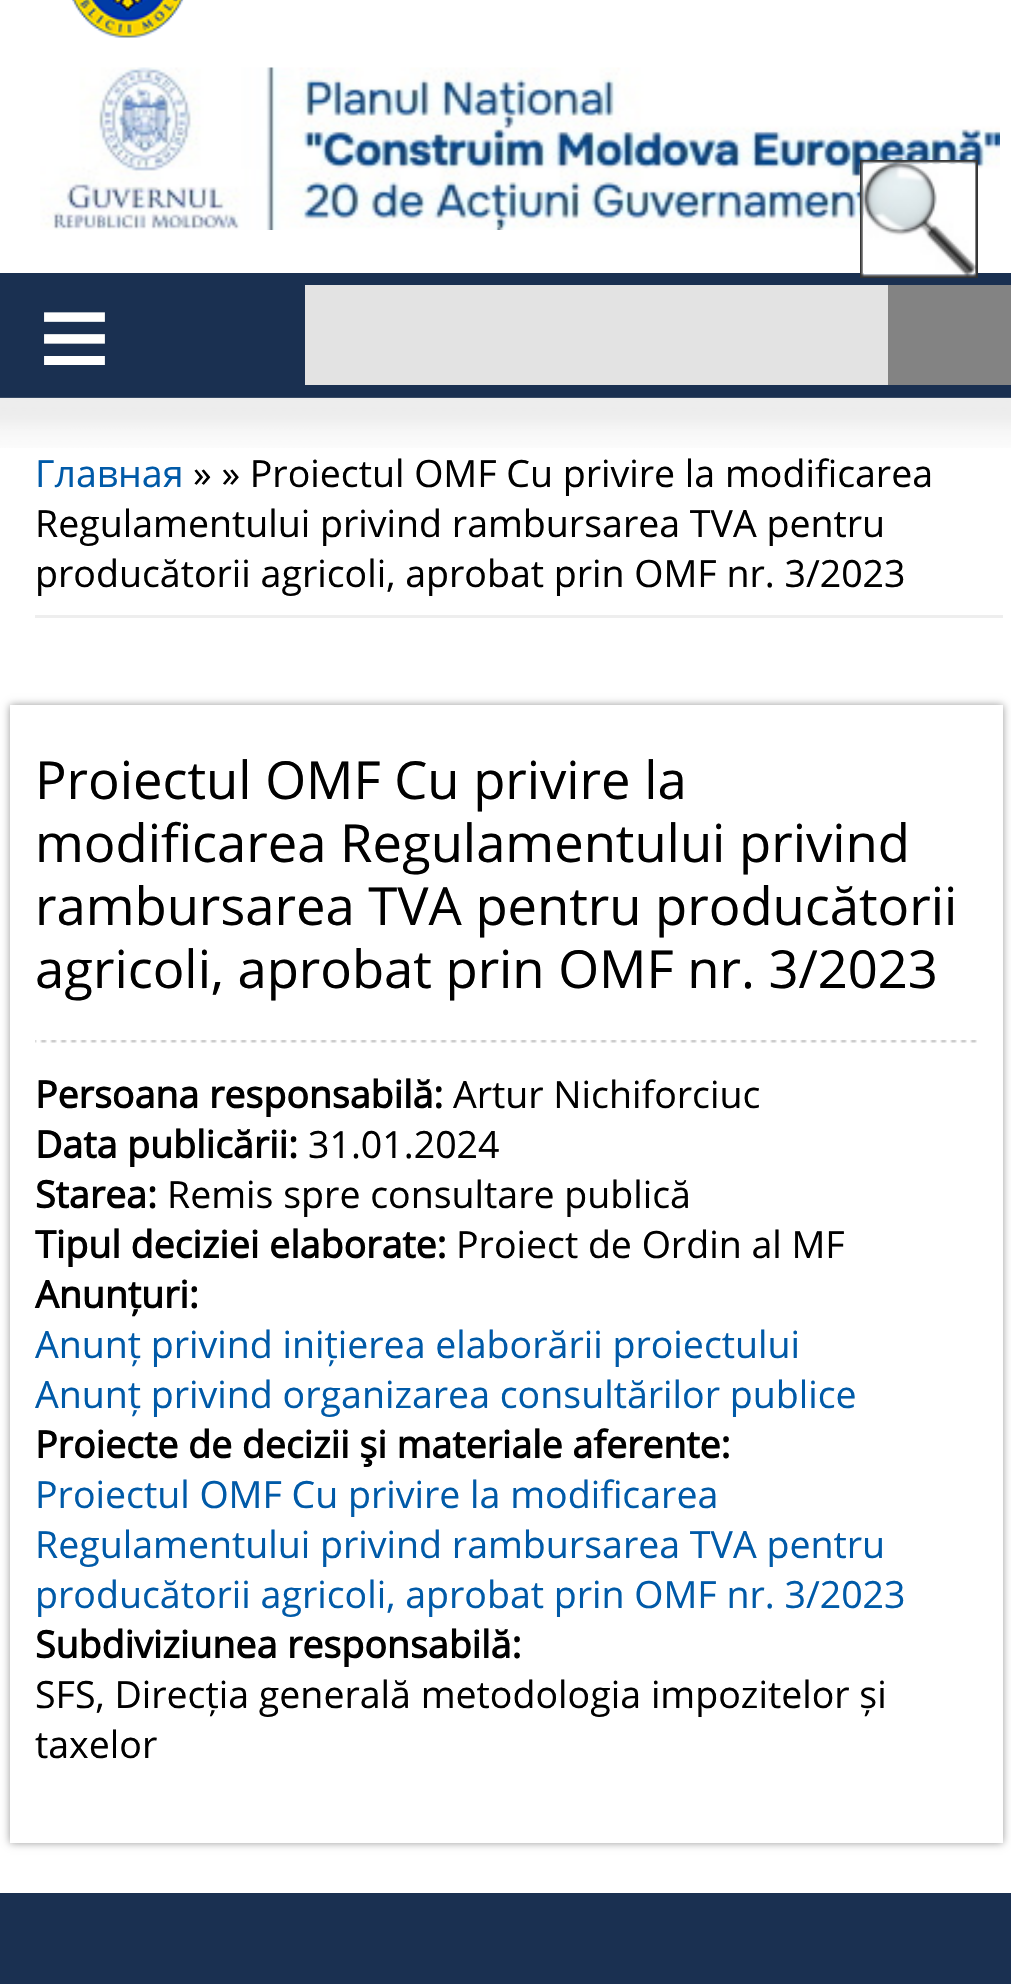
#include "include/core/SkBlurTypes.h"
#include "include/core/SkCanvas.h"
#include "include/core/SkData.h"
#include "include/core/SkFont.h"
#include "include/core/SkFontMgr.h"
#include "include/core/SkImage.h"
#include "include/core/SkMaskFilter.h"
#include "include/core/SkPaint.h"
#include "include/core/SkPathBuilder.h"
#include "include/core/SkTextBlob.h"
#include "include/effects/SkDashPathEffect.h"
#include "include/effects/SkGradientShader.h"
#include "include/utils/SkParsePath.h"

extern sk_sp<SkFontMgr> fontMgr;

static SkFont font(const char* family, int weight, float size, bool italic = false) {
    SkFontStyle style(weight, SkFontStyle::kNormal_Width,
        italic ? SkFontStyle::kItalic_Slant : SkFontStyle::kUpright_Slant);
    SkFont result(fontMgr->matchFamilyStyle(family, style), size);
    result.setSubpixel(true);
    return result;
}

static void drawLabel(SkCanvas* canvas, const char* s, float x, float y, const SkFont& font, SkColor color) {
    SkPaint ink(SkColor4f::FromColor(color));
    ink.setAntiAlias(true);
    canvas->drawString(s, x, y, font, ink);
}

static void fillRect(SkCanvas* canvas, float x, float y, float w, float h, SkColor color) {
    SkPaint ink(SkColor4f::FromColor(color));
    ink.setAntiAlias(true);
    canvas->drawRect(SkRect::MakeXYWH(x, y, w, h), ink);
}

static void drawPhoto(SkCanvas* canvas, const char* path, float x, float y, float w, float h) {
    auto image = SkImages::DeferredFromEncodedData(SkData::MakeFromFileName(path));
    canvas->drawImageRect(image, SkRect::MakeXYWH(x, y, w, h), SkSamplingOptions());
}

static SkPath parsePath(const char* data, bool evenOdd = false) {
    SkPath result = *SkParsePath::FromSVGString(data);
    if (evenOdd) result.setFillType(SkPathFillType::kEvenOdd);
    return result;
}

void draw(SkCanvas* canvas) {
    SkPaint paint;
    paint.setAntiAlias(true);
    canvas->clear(0xFFFFFFFF);
    drawPhoto(canvas, "assets/img1.png", 72, 0, 112, 38);
    drawPhoto(canvas, "assets/img2.png", 40, 67, 960, 163);
    fillRect(canvas, 0, 273, 1011, 125, 0xFF1A3051);
    SkFont font1 = font("Liberation Sans", 400, 125);
    drawLabel(canvas, "≡", 38, 380, font1, 0xFFFFFFFF);
    fillRect(canvas, 305, 285, 583, 100, 0xFFE3E3E3);
    fillRect(canvas, 888, 285, 123, 100, 0xFF838383);
    drawPhoto(canvas, "assets/img3.png", 0, 397, 1011, 51);
    fillRect(canvas, 35, 615, 968, 3, 0xFFEEEEEE);
    SkFont font2 = font("Open Sans", 400, 37.5f);
    drawLabel(canvas, "Главная", 35, 487, font2, 0xFF005AA8);
    drawLabel(canvas, "» » Proiectul OMF Cu privire la modificarea", 193, 487, font2, 0xFF000000);
    drawLabel(canvas, "Regulamentului privind rambursarea TVA pentru", 35, 537, font2, 0xFF000000);
    drawLabel(canvas, "producătorii agricoli, aprobat prin OMF nr. 3/2023", 35, 587, font2, 0xFF000000);
    paint.setStroke(true);
    paint.setStrokeWidth(3);
    paint.setColor(0xFF333333);
    canvas->drawRect(SkRect::MakeXYWH(861.5f, 161.5f, 115, 115), paint);
    drawPhoto(canvas, "assets/img4.png", 861, 161, 116, 116);
    canvas->save();
    canvas->clipPath(parsePath("M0 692H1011V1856H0ZM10 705H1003V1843H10Z", true), true);
    paint.setStroke(false);
    paint.setColor(0xFF999999);
    paint.setMaskFilter(SkMaskFilter::MakeBlur(kNormal_SkBlurStyle, 4));
    canvas->drawRect(SkRect::MakeXYWH(10, 705, 993, 1138), paint);
    paint.setMaskFilter(nullptr);
    canvas->restore();
    drawPhoto(canvas, "assets/img5.png", 35, 1040, 942, 3);
    SkFont font3 = font("Open Sans", 400, 52.5f);
    drawLabel(canvas, "Proiectul OMF Cu privire la", 35, 799, font3, 0xFF000000);
    drawLabel(canvas, "modificarea Regulamentului privind", 35, 862, font3, 0xFF000000);
    drawLabel(canvas, "rambursarea TVA pentru producătorii", 35, 925, font3, 0xFF000000);
    drawLabel(canvas, "agricoli, aprobat prin OMF nr. 3/2023", 35, 988, font3, 0xFF000000);
    SkFont font4 = font("Open Sans", 700, 37.5f);
    drawLabel(canvas, "Persoana responsabilă:", 35, 1108, font4, 0xFF000000);
    drawLabel(canvas, "Artur Nichiforciuc", 453, 1108, font2, 0xFF000000);
    drawLabel(canvas, "Data publicării:", 35, 1158, font4, 0xFF000000);
    drawLabel(canvas, "31.01.2024", 308, 1158, font2, 0xFF000000);
    drawLabel(canvas, "Starea:", 35, 1208, font4, 0xFF000000);
    drawLabel(canvas, "Remis spre consultare publică", 167, 1208, font2, 0xFF000000);
    drawLabel(canvas, "Tipul deciziei elaborate:", 35, 1258, font4, 0xFF000000);
    drawLabel(canvas, "Proiect de Ordin al MF", 456, 1258, font2, 0xFF000000);
    drawLabel(canvas, "Anunțuri:", 35, 1308, font4, 0xFF000000);
    drawLabel(canvas, "Anunț privind inițierea elaborării proiectului", 35, 1358, font2, 0xFF005AA8);
    drawLabel(canvas, "Anunț privind organizarea consultărilor publice", 35, 1408, font2, 0xFF005AA8);
    drawLabel(canvas, "Proiecte de decizii şi materiale aferente:", 35, 1458, font4, 0xFF000000);
    drawLabel(canvas, "Proiectul OMF Cu privire la modificarea", 35, 1508, font2, 0xFF005AA8);
    drawLabel(canvas, "Regulamentului privind rambursarea TVA pentru", 35, 1558, font2, 0xFF005AA8);
    drawLabel(canvas, "producătorii agricoli, aprobat prin OMF nr. 3/2023", 35, 1608, font2, 0xFF005AA8);
    drawLabel(canvas, "Subdiviziunea responsabilă:", 35, 1658, font4, 0xFF000000);
    drawLabel(canvas, "SFS, Direcția generală metodologia impozitelor și", 35, 1708, font2, 0xFF000000);
    drawLabel(canvas, "taxelor", 35, 1758, font2, 0xFF000000);
    fillRect(canvas, 0, 1893, 1011, 91, 0xFF1A3051);
}
